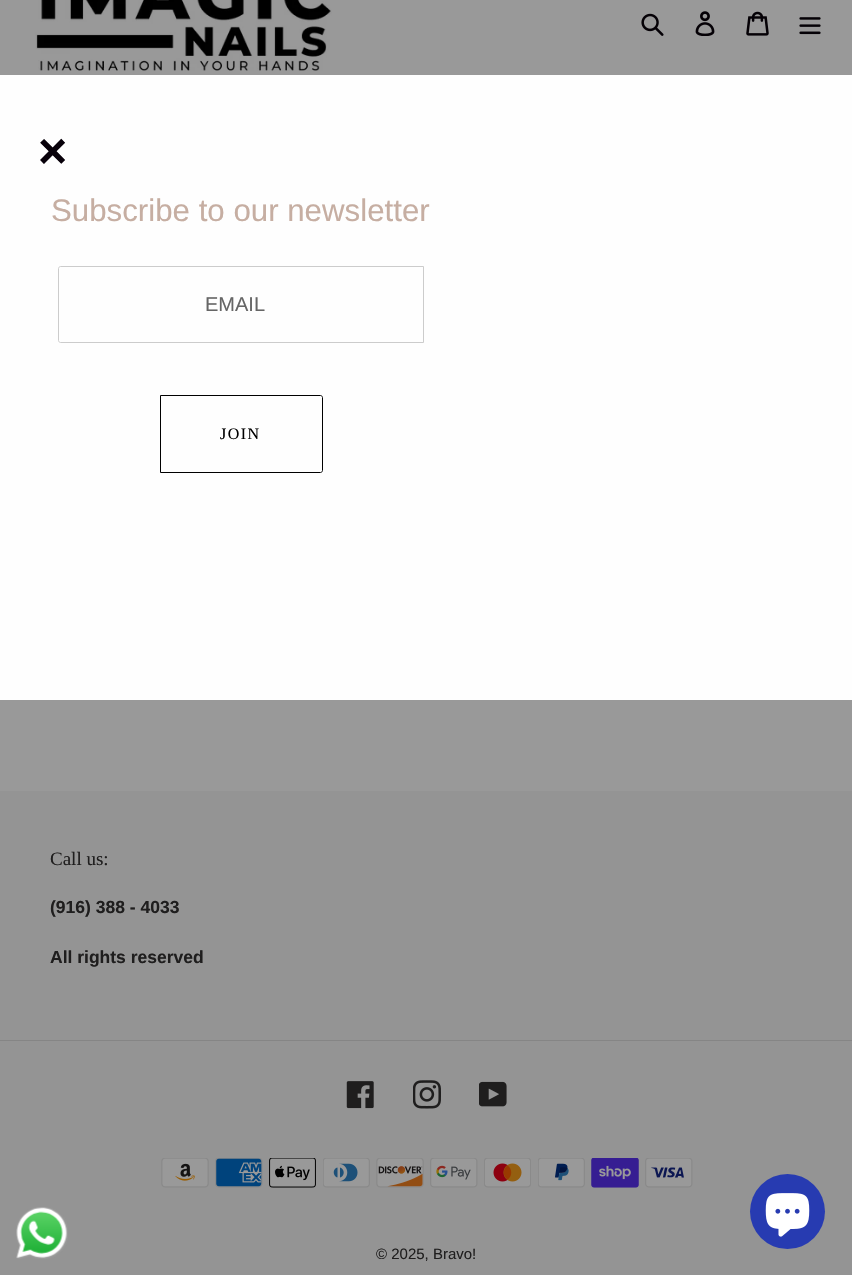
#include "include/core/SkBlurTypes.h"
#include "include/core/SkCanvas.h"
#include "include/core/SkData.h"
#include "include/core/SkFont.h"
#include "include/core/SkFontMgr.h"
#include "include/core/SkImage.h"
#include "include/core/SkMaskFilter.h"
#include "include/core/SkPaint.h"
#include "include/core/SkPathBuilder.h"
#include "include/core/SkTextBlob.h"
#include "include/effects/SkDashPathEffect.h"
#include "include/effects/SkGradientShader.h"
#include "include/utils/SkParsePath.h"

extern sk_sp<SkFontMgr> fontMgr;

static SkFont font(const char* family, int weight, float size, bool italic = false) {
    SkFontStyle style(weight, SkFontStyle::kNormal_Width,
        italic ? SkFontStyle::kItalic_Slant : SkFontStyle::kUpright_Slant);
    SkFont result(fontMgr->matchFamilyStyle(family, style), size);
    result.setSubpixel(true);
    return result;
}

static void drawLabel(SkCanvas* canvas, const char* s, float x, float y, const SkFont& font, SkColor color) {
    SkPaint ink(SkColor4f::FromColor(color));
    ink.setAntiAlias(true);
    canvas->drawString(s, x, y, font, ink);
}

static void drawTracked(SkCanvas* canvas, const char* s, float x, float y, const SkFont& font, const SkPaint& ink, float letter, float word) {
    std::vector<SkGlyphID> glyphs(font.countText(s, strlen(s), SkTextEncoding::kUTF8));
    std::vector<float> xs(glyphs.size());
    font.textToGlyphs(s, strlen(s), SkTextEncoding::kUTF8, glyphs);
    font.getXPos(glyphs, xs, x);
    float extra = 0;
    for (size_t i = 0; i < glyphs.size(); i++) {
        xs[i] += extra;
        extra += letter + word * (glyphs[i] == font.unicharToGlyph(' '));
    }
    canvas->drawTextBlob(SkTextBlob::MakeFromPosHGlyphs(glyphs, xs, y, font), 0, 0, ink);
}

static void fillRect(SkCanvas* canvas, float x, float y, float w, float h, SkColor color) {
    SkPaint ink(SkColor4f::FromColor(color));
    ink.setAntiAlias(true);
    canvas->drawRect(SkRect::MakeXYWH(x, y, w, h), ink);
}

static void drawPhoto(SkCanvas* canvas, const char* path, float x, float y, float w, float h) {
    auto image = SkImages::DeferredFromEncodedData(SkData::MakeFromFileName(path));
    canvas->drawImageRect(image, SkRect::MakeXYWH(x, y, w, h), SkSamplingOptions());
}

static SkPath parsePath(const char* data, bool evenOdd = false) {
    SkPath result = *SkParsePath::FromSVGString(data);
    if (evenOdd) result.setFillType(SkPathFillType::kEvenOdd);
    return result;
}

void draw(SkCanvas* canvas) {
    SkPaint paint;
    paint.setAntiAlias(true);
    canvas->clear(0xFF999999);
    drawPhoto(canvas, "assets/img1.png", 35, 0, 297, 71);
    drawPhoto(canvas, "assets/img2.png", 641, 13, 23, 23);
    drawPhoto(canvas, "assets/img3.png", 695, 11, 20, 25);
    drawPhoto(canvas, "assets/img4.png", 746, 11, 23, 25);
    drawPhoto(canvas, "assets/img5.png", 799, 17, 22, 18);
    fillRect(canvas, 0, 75, 852, 625, 0xFFFEFEFE);
    SkFont font1 = font("Liberation Sans", 700, 50);
    drawLabel(canvas, "×", 38, 168, font1, 0xFF08010A);
    SkFont font2 = font("Liberation Sans", 400, 31.25f);
    drawLabel(canvas, "Subscribe to our newsletter", 51, 221, font2, 0xFFC6AEA2);
    paint.setStroke(true);
    paint.setStrokeWidth(1);
    paint.setColor(0xFFCCCCCC);
    canvas->drawPath(parsePath("M60.5 266.5H423.5V342.5H60.5C59.5 342.5 58.5 341.5 58.5 340.5V268.5C58.5 267.5 59.5 266.5 60.5 266.5Z"), paint);
    SkFont font3 = font("Liberation Sans", 400, 20);
    drawLabel(canvas, "EMAIL", 205, 311, font3, 0xFF666666);
    paint.setColor(0xFF000000);
    canvas->drawPath(parsePath("M160.5 395.5H320.5C321.5 395.5 322.5 396.5 322.5 397.5V470.5C322.5 471.5 321.5 472.5 320.5 472.5H160.5Z"), paint);
    SkFont font4 = font("Liberation Serif", 400, 16);
    paint.setStroke(false);
    drawTracked(canvas, "JOIN", 220, 439, font4, paint, 1.5f, 0);
    fillRect(canvas, 0, 791, 852, 484, 0xFF949494);
    drawPhoto(canvas, "assets/img6.png", 16, 1207, 52, 52);
    SkFont font5 = font("Liberation Serif", 400, 19);
    drawLabel(canvas, "Call us:", 50, 865, font5, 0xFF1F1E1E);
    SkFont font6 = font("Liberation Sans", 700, 17.5f);
    drawLabel(canvas, "(916) 388 - 4033", 50, 913, font6, 0xFF1F1E1E);
    drawLabel(canvas, "All rights reserved", 50, 963, font6, 0xFF1F1E1E);
    fillRect(canvas, 0, 1040, 852, 1, 0xFF858585);
    drawPhoto(canvas, "assets/img7.png", 346, 1081, 28, 28);
    drawPhoto(canvas, "assets/img8.png", 413, 1080, 28, 29);
    drawPhoto(canvas, "assets/img9.png", 479, 1081, 28, 26);
    drawPhoto(canvas, "assets/img10.png", 161, 1158, 48, 30);
    drawPhoto(canvas, "assets/img11.png", 215, 1158, 48, 30);
    drawPhoto(canvas, "assets/img12.png", 269, 1158, 47, 30);
    drawPhoto(canvas, "assets/img13.png", 323, 1158, 47, 30);
    drawPhoto(canvas, "assets/img14.png", 376, 1158, 48, 30);
    drawPhoto(canvas, "assets/img15.png", 430, 1158, 48, 30);
    drawPhoto(canvas, "assets/img16.png", 484, 1158, 47, 30);
    drawPhoto(canvas, "assets/img17.png", 538, 1158, 47, 30);
    drawPhoto(canvas, "assets/img18.png", 591, 1158, 48, 30);
    drawPhoto(canvas, "assets/img19.png", 645, 1158, 48, 30);
    SkFont font7 = font("Liberation Sans", 400, 15);
    drawLabel(canvas, "© 2025, Bravo!", 376, 1259, font7, 0xFF1F1E1E);
    paint.setColor(0xFF273BB1);
    canvas->drawCircle(787.5f, 1211.5f, 37.5f, paint);
    drawPhoto(canvas, "assets/img20.png", 765, 1193, 45, 44);
}
